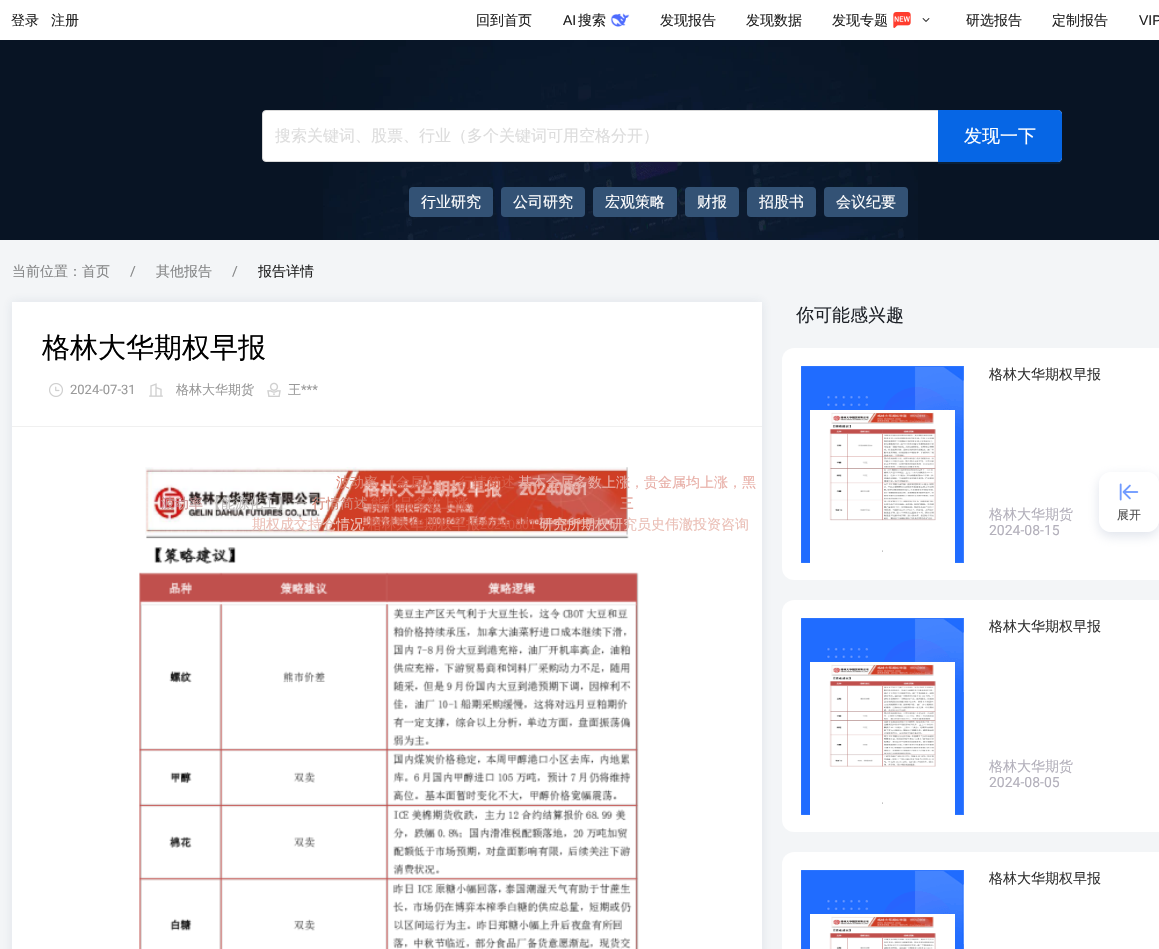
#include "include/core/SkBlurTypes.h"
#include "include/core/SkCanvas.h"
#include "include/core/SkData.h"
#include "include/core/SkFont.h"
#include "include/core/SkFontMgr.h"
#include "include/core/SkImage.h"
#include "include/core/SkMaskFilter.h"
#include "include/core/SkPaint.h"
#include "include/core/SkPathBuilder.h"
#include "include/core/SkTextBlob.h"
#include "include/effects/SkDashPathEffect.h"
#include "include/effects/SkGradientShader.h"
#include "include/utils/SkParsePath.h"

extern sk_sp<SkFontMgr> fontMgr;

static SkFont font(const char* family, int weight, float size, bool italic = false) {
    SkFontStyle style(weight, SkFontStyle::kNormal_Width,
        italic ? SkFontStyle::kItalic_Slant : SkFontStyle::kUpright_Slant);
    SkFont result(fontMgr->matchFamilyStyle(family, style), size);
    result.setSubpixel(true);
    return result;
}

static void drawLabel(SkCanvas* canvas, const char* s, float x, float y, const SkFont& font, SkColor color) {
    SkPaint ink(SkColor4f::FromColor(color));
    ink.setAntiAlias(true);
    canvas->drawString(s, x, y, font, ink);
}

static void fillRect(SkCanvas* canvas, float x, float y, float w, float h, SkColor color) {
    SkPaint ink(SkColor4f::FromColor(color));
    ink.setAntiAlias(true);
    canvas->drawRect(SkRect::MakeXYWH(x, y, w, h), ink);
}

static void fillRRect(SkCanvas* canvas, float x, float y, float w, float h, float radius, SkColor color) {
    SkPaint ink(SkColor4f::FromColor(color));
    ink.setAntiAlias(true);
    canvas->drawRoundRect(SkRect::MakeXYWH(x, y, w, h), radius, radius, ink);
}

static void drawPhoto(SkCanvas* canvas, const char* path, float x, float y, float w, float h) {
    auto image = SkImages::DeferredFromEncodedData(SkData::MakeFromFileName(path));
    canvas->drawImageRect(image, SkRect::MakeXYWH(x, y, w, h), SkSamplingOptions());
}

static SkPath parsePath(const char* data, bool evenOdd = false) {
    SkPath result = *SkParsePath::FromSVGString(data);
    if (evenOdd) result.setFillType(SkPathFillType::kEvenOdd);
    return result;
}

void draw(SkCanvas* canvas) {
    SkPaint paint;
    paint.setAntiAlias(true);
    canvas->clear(0xFFF3F5F7);
    fillRect(canvas, 0, 0, 1159, 40, 0xFFFFFFFF);
    SkFont font1 = font("WenQuanYi Zen Hei", 500, 14);
    drawLabel(canvas, "登录", 11, 25, font1, 0xFF222222);
    drawLabel(canvas, "注册", 51, 25, font1, 0xFF222222);
    drawLabel(canvas, "回到首页", 476, 25, font1, 0xFF222222);
    SkFont font2 = font("Liberation Sans", 400, 14);
    drawLabel(canvas, "AI", 563, 25, font2, 0xFF222222);
    drawLabel(canvas, "搜索", 578, 25, font1, 0xFF222222);
    drawPhoto(canvas, "assets/img1.png", 610, 13, 20, 14);
    drawLabel(canvas, "发现报告", 660, 25, font1, 0xFF222222);
    drawLabel(canvas, "发现数据", 746, 25, font1, 0xFF222222);
    drawLabel(canvas, "发现专题", 832, 25, font1, 0xFF222222);
    drawPhoto(canvas, "assets/img2.png", 893, 12, 18, 16);
    drawPhoto(canvas, "assets/img3.png", 922, 18, 8, 4);
    drawLabel(canvas, "研选报告", 966, 25, font1, 0xFF222222);
    drawLabel(canvas, "定制报告", 1052, 25, font1, 0xFF222222);
    drawLabel(canvas, "VIP", 1139, 25, font2, 0xFF222222);
    fillRect(canvas, 0, 40, 1159, 200, 0xFF081424);
    drawPhoto(canvas, "assets/img4.png", 323, 40, 595, 200);
    paint.setColor(0xFFFFFFFF);
    canvas->drawRoundRect(SkRect::MakeXYWH(262.5f, 110.5f, 799, 51), 3.5f, 3.5f, paint);
    paint.setStroke(true);
    paint.setStrokeWidth(1);
    paint.setColor(0xFFD9D9D9);
    canvas->drawRoundRect(SkRect::MakeXYWH(262.5f, 110.5f, 799, 51), 3.5f, 3.5f, paint);
    SkFont font3 = font("WenQuanYi Zen Hei", 500, 16);
    drawLabel(canvas, "搜索关键词、股票、行业（多个关键词可用空格分开）", 275, 141, font3, 0xFFDDDDDD);
    paint.setStroke(false);
    paint.setColor(0x1A0591FF);
    canvas->drawPath(parsePath("M938 162V164H1058C1060 164 1062 162 1062 160V158C1062 160 1060 162 1058 162Z"), paint);
    paint.setColor(0xFF0666E5);
    canvas->drawPath(parsePath("M938 110H1058C1060 110 1062 112 1062 114V158C1062 160 1060 162 1058 162H938Z"), paint);
    SkFont font4 = font("WenQuanYi Zen Hei", 500, 18);
    drawLabel(canvas, "发现一下", 964, 142, font4, 0xFFFFFFFF);
    fillRRect(canvas, 409, 187, 84, 30, 4, 0xFF335275);
    SkFont font5 = font("WenQuanYi Zen Hei", 500, 15);
    drawLabel(canvas, "行业研究", 421, 207, font5, 0xFFFFFFFF);
    fillRRect(canvas, 501, 187, 84, 30, 4, 0xFF335275);
    drawLabel(canvas, "公司研究", 513, 207, font5, 0xFFFFFFFF);
    fillRRect(canvas, 593, 187, 84, 30, 4, 0xFF335275);
    drawLabel(canvas, "宏观策略", 605, 207, font5, 0xFFFFFFFF);
    fillRRect(canvas, 685, 187, 54, 30, 4, 0xFF335275);
    drawLabel(canvas, "财报", 697, 207, font5, 0xFFFFFFFF);
    fillRRect(canvas, 747, 187, 69, 30, 4, 0xFF335275);
    drawLabel(canvas, "招股书", 759, 207, font5, 0xFFFFFFFF);
    fillRRect(canvas, 824, 187, 84, 30, 4, 0xFF335275);
    drawLabel(canvas, "会议纪要", 836, 207, font5, 0xFFFFFFFF);
    drawLabel(canvas, "当前位置：首页", 12, 276, font1, 0xFF868788);
    SkFont font6 = font("Roboto", 400, 14);
    drawLabel(canvas, "/", 130, 276, font6, 0xFF868788);
    drawLabel(canvas, "其他报告", 156, 276, font1, 0xFF868788);
    drawLabel(canvas, "/", 232, 276, font6, 0xFF868788);
    drawLabel(canvas, "报告详情", 258, 276, font1, 0xFF222222);
    paint.setColor(0x1A27426B);
    paint.setMaskFilter(SkMaskFilter::MakeBlur(kNormal_SkBlurStyle, 5));
    canvas->drawRect(SkRect::MakeXYWH(12, 302, 750, 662), paint);
    paint.setMaskFilter(nullptr);
    fillRect(canvas, 12, 302, 750, 647, 0xFFFFFFFF);
    SkFont font7 = font("WenQuanYi Zen Hei", 500, 28);
    drawLabel(canvas, "格林大华期权早报", 42, 357, font7, 0xFF000000);
    drawPhoto(canvas, "assets/img5.png", 49, 383, 14, 14);
    SkFont font8 = font("Roboto", 400, 13);
    drawLabel(canvas, "2024-07-31", 70, 394, font8, 0xFF999999);
    drawPhoto(canvas, "assets/img6.png", 149, 383, 14, 14);
    SkFont font9 = font("WenQuanYi Zen Hei", 500, 13);
    drawLabel(canvas, "格林大华期货", 176, 394, font9, 0xFF999999);
    drawPhoto(canvas, "assets/img7.png", 267, 382, 14, 15);
    drawLabel(canvas, "王", 288, 394, font9, 0xFF999999);
    drawLabel(canvas, "***", 301, 394, font8, 0xFF999999);
    fillRect(canvas, 12, 426, 750, 1, 0xFFF0F0F0);
    drawPhoto(canvas, "assets/img8.png", 139, 467, 500, 482);
    drawLabel(canvas, "波动率", 336, 487, font1, 0xFFDC8372);
    drawLabel(canvas, "【金属】", 382, 487, font1, 0xFFD96450);
    SkFont font10 = font("Liberation Serif", 400, 14);
    drawLabel(canvas, ".", 455, 487, font10, 0xFFDC8372);
    drawLabel(canvas, "行情简述", 459, 487, font1, 0xFFD75D48);
    drawLabel(canvas, "基本金属多数上涨，贵金属均上涨，黑", 518, 487, font1, 0xFFE8AEA6);
    drawLabel(canvas, "波动率", 161, 508, font1, 0xFFC69494);
    drawLabel(canvas, "【能源化工】", 207, 508, font1, 0xFFC0BEBD);
    drawLabel(canvas, "一", 294, 508, font1, 0xFF969290);
    drawLabel(canvas, "行情简述", 312, 508, font1, 0xFFD6897A);
    drawLabel(canvas, "能化品多数上涨。", 371, 508, font1, 0xFFD75D48);
    drawLabel(canvas, "三", 620, 508, font1, 0xFFDF968B);
    drawLabel(canvas, "期权成交持仓情况", 252, 529, font1, 0xFFEBBFB6);
    drawLabel(canvas, "格林大华期权早报", 368, 529, font1, 0xFFD75D48);
    drawLabel(canvas, "20240801", 480, 529, font10, 0xFFD55742);
    drawLabel(canvas, "研究所期权研究员史伟澈投资咨询", 539, 529, font1, 0xFFEBBFB6);
    drawLabel(canvas, "你可能感兴趣", 796, 321, font4, 0xFF1F2329);
    fillRRect(canvas, 782, 348, 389, 232, 12, 0xFFFFFFFF);
    drawPhoto(canvas, "assets/img9.png", 801, 366, 163, 197);
    fillRect(canvas, 810, 410, 145, 153, 0xFFFFFFFF);
    drawPhoto(canvas, "assets/img10.png", 829, 412, 107, 140);
    drawLabel(canvas, "格林大华期权早报", 989, 379, font1, 0xFF333333);
    drawLabel(canvas, "格林大华期货", 989, 519, font1, 0xFFB3B0BB);
    drawLabel(canvas, "2024-08-15", 989, 535, font6, 0xFFB3B0BB);
    fillRRect(canvas, 782, 600, 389, 232, 12, 0xFFFFFFFF);
    drawPhoto(canvas, "assets/img9.png", 801, 618, 163, 197);
    fillRect(canvas, 810, 662, 145, 153, 0xFFFFFFFF);
    drawPhoto(canvas, "assets/img11.png", 829, 664, 107, 140);
    drawLabel(canvas, "格林大华期权早报", 989, 631, font1, 0xFF333333);
    drawLabel(canvas, "格林大华期货", 989, 771, font1, 0xFFB3B0BB);
    drawLabel(canvas, "2024-08-05", 989, 787, font6, 0xFFB3B0BB);
    fillRRect(canvas, 782, 852, 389, 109, 12, 0xFFFFFFFF);
    drawPhoto(canvas, "assets/img12.png", 801, 870, 163, 79);
    fillRect(canvas, 810, 914, 145, 35, 0xFFFFFFFF);
    drawPhoto(canvas, "assets/img13.png", 829, 916, 107, 33);
    drawLabel(canvas, "格林大华期权早报", 989, 883, font1, 0xFF333333);
    canvas->save();
    canvas->clipPath(parsePath("M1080 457H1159V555H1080ZM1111 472H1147C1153.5 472 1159 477.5 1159 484V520C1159 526.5 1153.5 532 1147 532H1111C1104.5 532 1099 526.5 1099 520V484C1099 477.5 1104.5 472 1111 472Z", true), true);
    paint.setColor(0x80BFC7D8);
    paint.setMaskFilter(SkMaskFilter::MakeBlur(kNormal_SkBlurStyle, 6));
    canvas->drawRoundRect(SkRect::MakeXYWH(1099, 476, 60, 60), 12, 12, paint);
    paint.setMaskFilter(nullptr);
    canvas->restore();
    fillRRect(canvas, 1099, 472, 60, 60, 12, 0xB3FFFFFF);
    drawPhoto(canvas, "assets/img14.png", 1119, 483, 20, 18);
    SkFont font11 = font("WenQuanYi Zen Hei", 500, 12);
    drawLabel(canvas, "展开", 1117, 519, font11, 0xFF4D4D4D);
}
